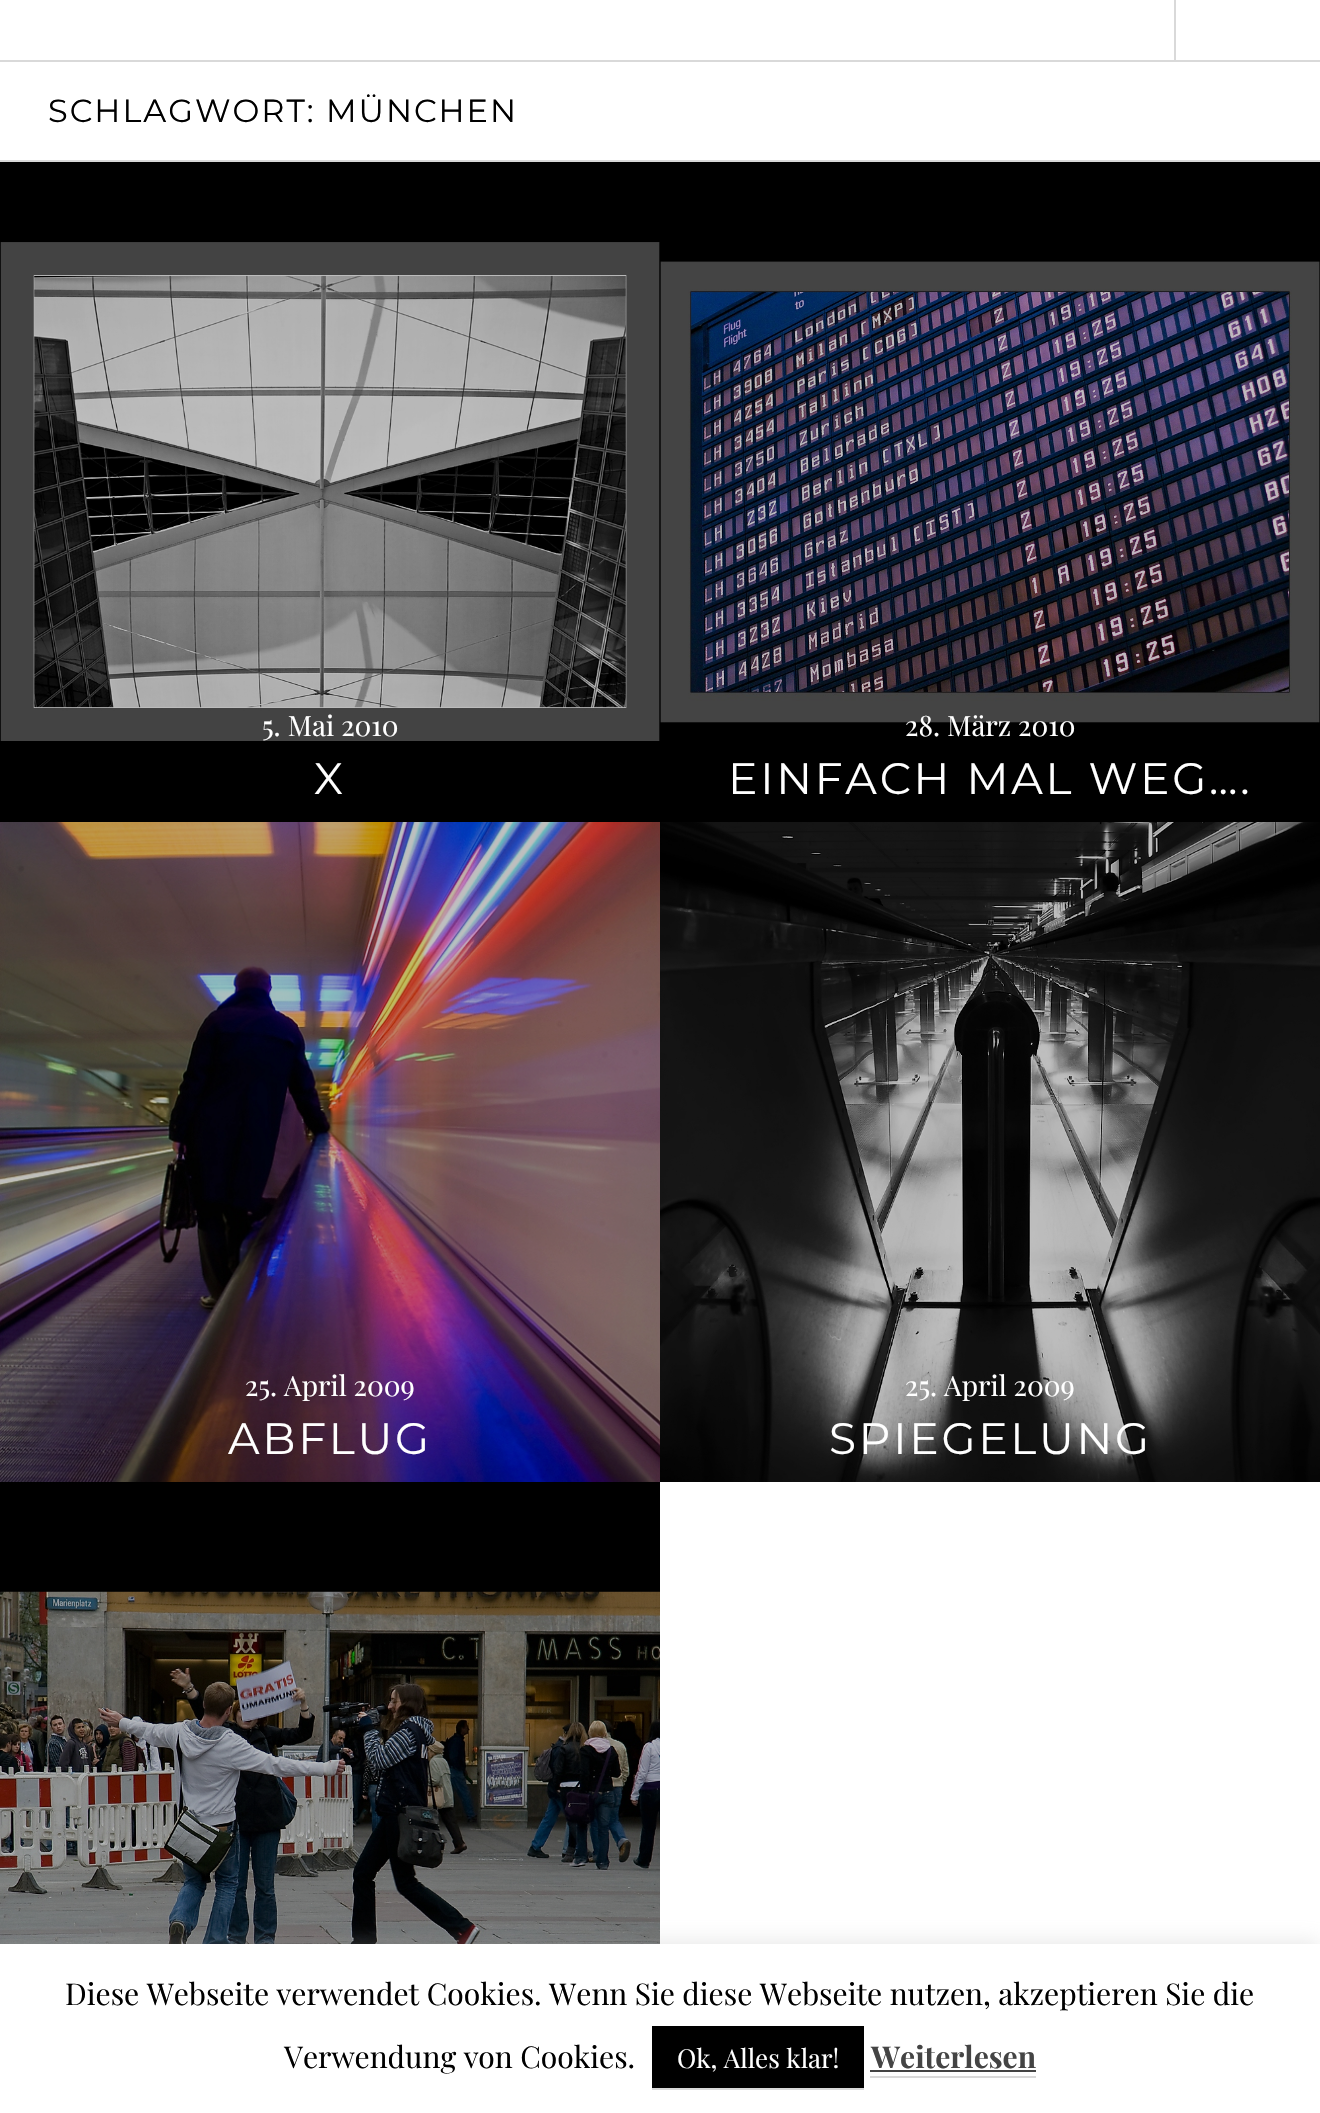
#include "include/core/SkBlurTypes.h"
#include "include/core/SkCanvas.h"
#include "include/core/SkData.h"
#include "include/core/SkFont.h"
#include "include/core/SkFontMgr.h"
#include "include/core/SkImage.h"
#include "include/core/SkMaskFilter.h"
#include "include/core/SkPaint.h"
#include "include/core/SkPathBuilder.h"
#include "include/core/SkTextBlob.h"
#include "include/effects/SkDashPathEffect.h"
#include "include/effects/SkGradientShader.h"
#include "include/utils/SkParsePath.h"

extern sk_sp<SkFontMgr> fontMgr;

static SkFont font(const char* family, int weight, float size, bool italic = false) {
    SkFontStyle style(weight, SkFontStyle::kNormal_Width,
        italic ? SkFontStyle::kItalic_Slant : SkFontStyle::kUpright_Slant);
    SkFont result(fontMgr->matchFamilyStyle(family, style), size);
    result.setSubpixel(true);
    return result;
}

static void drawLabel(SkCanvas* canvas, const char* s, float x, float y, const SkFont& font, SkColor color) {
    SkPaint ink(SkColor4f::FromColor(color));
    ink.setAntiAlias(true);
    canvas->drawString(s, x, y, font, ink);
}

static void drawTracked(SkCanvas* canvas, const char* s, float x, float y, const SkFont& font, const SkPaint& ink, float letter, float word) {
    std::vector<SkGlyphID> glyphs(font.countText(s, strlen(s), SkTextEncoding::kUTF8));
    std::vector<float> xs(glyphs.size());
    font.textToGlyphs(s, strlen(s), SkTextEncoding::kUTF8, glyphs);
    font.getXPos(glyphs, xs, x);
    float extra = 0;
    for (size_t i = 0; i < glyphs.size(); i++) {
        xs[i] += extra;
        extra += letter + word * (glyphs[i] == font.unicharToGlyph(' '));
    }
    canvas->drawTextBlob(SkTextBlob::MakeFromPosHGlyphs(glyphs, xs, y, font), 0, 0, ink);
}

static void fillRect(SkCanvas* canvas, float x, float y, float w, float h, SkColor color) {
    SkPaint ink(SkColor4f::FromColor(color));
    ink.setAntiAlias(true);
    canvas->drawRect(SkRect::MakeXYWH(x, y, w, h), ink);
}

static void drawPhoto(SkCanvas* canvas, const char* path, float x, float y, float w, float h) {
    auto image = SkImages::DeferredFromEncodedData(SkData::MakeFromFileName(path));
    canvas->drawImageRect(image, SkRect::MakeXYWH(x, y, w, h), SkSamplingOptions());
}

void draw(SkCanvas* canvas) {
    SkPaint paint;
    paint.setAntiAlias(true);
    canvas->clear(0xFFFFFFFF);
    fillRect(canvas, 0, 60, 1320, 2, 0xFFD9D9D9);
    fillRect(canvas, 1174, 0, 2, 60, 0xFFD9D9D9);
    fillRect(canvas, 0, 160, 1320, 2, 0xFFD9D9D9);
    SkFont font1 = font("Montserrat", 400, 32);
    paint.setColor(0xFF000000);
    drawTracked(canvas, "SCHLAGWORT: MÜNCHEN", 48, 122, font1, paint, 2, 0);
    fillRect(canvas, 0, 162, 1320, 660, 0xFF000000);
    drawPhoto(canvas, "assets/img1.png", 0, 242, 660, 499);
    SkFont font2 = font("Playfair Display", 400, 28);
    drawLabel(canvas, "5. Mai 2010", 262, 736, font2, 0xFFFFFFFF);
    SkFont font3 = font("Montserrat", 400, 44);
    paint.setColor(0xFFFFFFFF);
    drawTracked(canvas, "X", 314, 794, font3, paint, 2.75f, 0);
    drawPhoto(canvas, "assets/img2.png", 660, 261, 660, 462);
    drawLabel(canvas, "28. März 2010", 905, 736, font2, 0xFFFFFFFF);
    drawTracked(canvas, "EINFACH MAL WEG….", 728, 794, font3, paint, 2.75f, 0);
    drawPhoto(canvas, "assets/img3.png", 0, 822, 660, 660);
    drawLabel(canvas, "25. April 2009", 245, 1396, font2, 0xFFFFFFFF);
    drawTracked(canvas, "ABFLUG", 228, 1454, font3, paint, 2.75f, 0);
    drawPhoto(canvas, "assets/img4.png", 660, 822, 660, 660);
    drawLabel(canvas, "25. April 2009", 905, 1396, font2, 0xFFFFFFFF);
    drawTracked(canvas, "SPIEGELUNG", 829, 1454, font3, paint, 2.75f, 0);
    fillRect(canvas, 0, 1482, 660, 110, 0xFF000000);
    drawPhoto(canvas, "assets/img5.png", 0, 1591, 660, 353);
    paint.setColor(0x4DACABAB);
    paint.setMaskFilter(SkMaskFilter::MakeBlur(kNormal_SkBlurStyle, 10));
    canvas->drawRect(SkRect::MakeXYWH(0, 1942, 1320, 170), paint);
    paint.setMaskFilter(nullptr);
    fillRect(canvas, 0, 1944, 1320, 169, 0xFFFFFFFF);
    SkFont font4 = font("Playfair Display", 400, 30);
    drawLabel(canvas, "Diese Webseite verwendet Cookies. Wenn Sie diese Webseite nutzen, akzeptieren Sie die", 65, 2005, font4, 0xFF000000);
    drawLabel(canvas, "Verwendung von Cookies.", 284, 2068, font4, 0xFF000000);
    fillRect(canvas, 652, 2026, 212, 62, 0xFF000000);
    fillRect(canvas, 652, 2088, 212, 2, 0xFFD9D9D9);
    SkFont font5 = font("Playfair Display", 400, 26);
    drawLabel(canvas, "Ok, Alles klar!", 677, 2068, font5, 0xFFFFFFFF);
    SkFont font6 = font("Playfair Display", 700, 30);
    drawLabel(canvas, "Weiterlesen", 871, 2068, font6, 0xFF444444);
    fillRect(canvas, 870, 2076, 166, 2, 0xFFD9D9D9);
    fillRect(canvas, 870, 2070, 166, 2, 0xFF444444);
}
